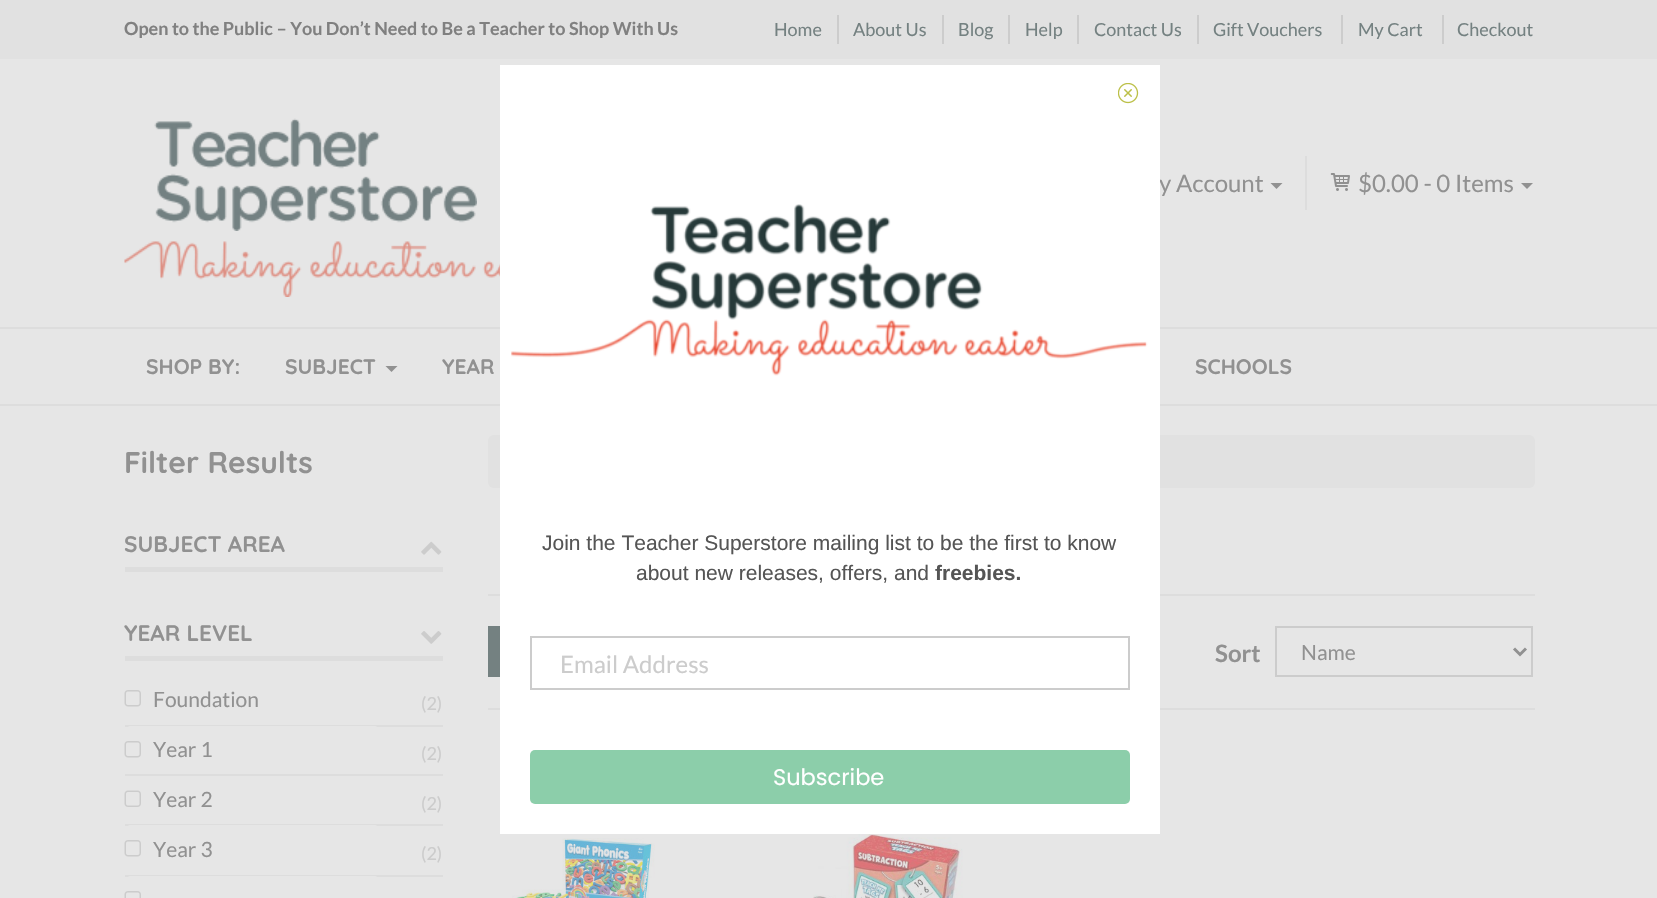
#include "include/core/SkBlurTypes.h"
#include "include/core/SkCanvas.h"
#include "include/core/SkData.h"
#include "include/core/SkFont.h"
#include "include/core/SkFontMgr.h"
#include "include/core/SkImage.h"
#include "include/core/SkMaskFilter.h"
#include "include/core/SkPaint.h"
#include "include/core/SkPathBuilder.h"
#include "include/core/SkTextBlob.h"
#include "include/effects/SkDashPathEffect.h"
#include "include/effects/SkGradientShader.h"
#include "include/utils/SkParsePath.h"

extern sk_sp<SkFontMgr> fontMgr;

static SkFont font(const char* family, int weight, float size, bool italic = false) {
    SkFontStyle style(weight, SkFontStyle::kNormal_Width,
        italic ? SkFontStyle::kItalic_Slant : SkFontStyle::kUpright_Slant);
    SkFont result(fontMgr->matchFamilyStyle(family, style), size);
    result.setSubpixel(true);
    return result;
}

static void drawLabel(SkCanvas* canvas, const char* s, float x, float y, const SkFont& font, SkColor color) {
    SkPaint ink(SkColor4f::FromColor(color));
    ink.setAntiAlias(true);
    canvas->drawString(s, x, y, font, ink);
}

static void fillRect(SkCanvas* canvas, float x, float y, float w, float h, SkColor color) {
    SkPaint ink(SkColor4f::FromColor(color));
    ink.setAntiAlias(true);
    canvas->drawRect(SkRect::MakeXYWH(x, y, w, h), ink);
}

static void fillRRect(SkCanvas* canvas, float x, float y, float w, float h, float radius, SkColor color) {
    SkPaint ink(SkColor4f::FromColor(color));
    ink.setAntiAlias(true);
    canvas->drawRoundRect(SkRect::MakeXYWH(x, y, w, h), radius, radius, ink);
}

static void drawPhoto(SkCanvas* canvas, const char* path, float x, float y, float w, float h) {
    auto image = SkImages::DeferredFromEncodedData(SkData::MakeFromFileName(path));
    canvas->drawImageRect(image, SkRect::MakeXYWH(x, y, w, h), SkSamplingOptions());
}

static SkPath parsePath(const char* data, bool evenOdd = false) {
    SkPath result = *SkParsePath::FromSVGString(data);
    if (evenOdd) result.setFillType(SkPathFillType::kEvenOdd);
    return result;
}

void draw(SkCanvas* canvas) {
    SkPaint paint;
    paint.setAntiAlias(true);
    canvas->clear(0xFFE6E6E6);
    fillRect(canvas, 0, 0, 1657, 59, 0xFFE1E1E1);
    SkFont font1 = font("Lato", 700, 18);
    drawLabel(canvas, "Open to the Public – You Don’t Need to Be a Teacher to Shop With Us", 124, 35, font1, 0xFF808080);
    SkFont font2 = font("Lato", 400, 18);
    drawLabel(canvas, "Home", 774, 36, font2, 0xFF748181);
    fillRect(canvas, 837, 15, 2, 29, 0xFFCCCCCC);
    drawLabel(canvas, "About Us", 853, 36, font2, 0xFF748181);
    fillRect(canvas, 942, 15, 2, 29, 0xFFCCCCCC);
    drawLabel(canvas, "Blog", 958, 36, font2, 0xFF748181);
    fillRect(canvas, 1008, 15, 2, 29, 0xFFCCCCCC);
    drawLabel(canvas, "Help", 1025, 36, font2, 0xFF748181);
    fillRect(canvas, 1077, 15, 2, 29, 0xFFCCCCCC);
    drawLabel(canvas, "Contact Us", 1094, 36, font2, 0xFF748181);
    fillRect(canvas, 1197, 15, 2, 29, 0xFFCCCCCC);
    drawLabel(canvas, "Gift Vouchers", 1213, 36, font2, 0xFF748181);
    fillRect(canvas, 1341, 15, 2, 29, 0xFFCCCCCC);
    drawLabel(canvas, "My Cart", 1358, 36, font2, 0xFF748181);
    fillRect(canvas, 1442, 15, 2, 29, 0xFFCCCCCC);
    drawLabel(canvas, "Checkout", 1457, 36, font2, 0xFF748181);
    drawPhoto(canvas, "assets/img1.png", 154, 118, 323, 113);
    fillRect(canvas, 1305, 156, 2, 54, 0xFFDDDDDD);
    SkFont font3 = font("Lato", 400, 24);
    drawLabel(canvas, "y Account", 1159, 192, font3, 0xFF919191);
    paint.setColor(0xFF919191);
    canvas->drawPath(parsePath("M1270.5 183H1282.5L1276.5 189Z"), paint);
    drawPhoto(canvas, "assets/img2.png", 1330, 173, 20, 18);
    drawLabel(canvas, "$0.00 - 0 Items", 1358, 192, font3, 0xFF919191);
    canvas->drawPath(parsePath("M1521 183H1533L1527 189Z"), paint);
    drawPhoto(canvas, "assets/img3.png", 124, 241, 376, 56);
    fillRect(canvas, 0, 327, 1657, 2, 0xFFDDDDDD);
    fillRect(canvas, 0, 404, 1657, 2, 0xFFDDDDDD);
    SkFont font4 = font("Quicksand", 700, 21);
    drawLabel(canvas, "SHOP BY:", 146, 374, font4, 0xFF919191);
    drawLabel(canvas, "SUBJECT", 285, 374, font4, 0xFF919191);
    canvas->drawPath(parsePath("M385.5 366H397.5L391.5 372Z"), paint);
    drawLabel(canvas, "YEAR", 442, 374, font4, 0xFF919191);
    drawLabel(canvas, "SCHOOLS", 1195, 374, font4, 0xFF919191);
    SkFont font5 = font("Quicksand", 700, 30);
    drawLabel(canvas, "Filter Results", 124, 473, font5, 0xFF919191);
    fillRect(canvas, 125, 567, 318, 5, 0xFFDDDDDD);
    SkFont font6 = font("Quicksand", 700, 22.5f);
    drawLabel(canvas, "SUBJECT AREA", 124, 552, font6, 0xFF919191);
    drawPhoto(canvas, "assets/img4.png", 421, 541, 21, 14);
    fillRect(canvas, 125, 656, 318, 5, 0xFFDDDDDD);
    drawLabel(canvas, "YEAR LEVEL", 124, 641, font6, 0xFF919191);
    drawPhoto(canvas, "assets/img5.png", 421, 631, 21, 13);
    fillRect(canvas, 125, 725, 318, 2, 0xFFDDDDDD);
    drawPhoto(canvas, "assets/img6.png", 124, 690, 17, 17);
    SkFont font7 = font("Lato", 400, 21);
    drawLabel(canvas, "Foundation", 153, 707, font7, 0xFF919191);
    drawLabel(canvas, "(2)", 421, 710, font2, 0xFFCCCCCC);
    fillRect(canvas, 125, 774, 318, 2, 0xFFDDDDDD);
    paint.setColor(0xFFE6E6E6);
    canvas->drawPath(parsePath("M131 726H374C377.5 726 380 728.5 380 732V774H125V732C125 728.5 127.5 726 131 726Z"), paint);
    drawPhoto(canvas, "assets/img6.png", 124, 741, 17, 17);
    drawLabel(canvas, "Year 1", 153, 757, font7, 0xFF919191);
    drawLabel(canvas, "(2)", 421, 760, font2, 0xFFCCCCCC);
    fillRect(canvas, 125, 824, 318, 2, 0xFFDDDDDD);
    drawPhoto(canvas, "assets/img7.png", 124, 790, 17, 17);
    drawLabel(canvas, "Year 2", 153, 807, font7, 0xFF919191);
    drawLabel(canvas, "(2)", 421, 810, font2, 0xFFCCCCCC);
    fillRect(canvas, 125, 875, 318, 2, 0xFFDDDDDD);
    canvas->drawPath(parsePath("M131 825H374C377.5 825 380 827.5 380 831V875H125V831C125 827.5 127.5 825 131 825Z"), paint);
    drawPhoto(canvas, "assets/img6.png", 124, 840, 17, 17);
    drawLabel(canvas, "Year 3", 153, 857, font7, 0xFF919191);
    drawLabel(canvas, "(2)", 421, 860, font2, 0xFFCCCCCC);
    canvas->drawPath(parsePath("M131 876H374C377.5 876 380 878.5 380 882V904H125V882C125 878.5 127.5 876 131 876Z"), paint);
    drawPhoto(canvas, "assets/img8.png", 124, 891, 17, 7);
    fillRRect(canvas, 488, 435, 1047, 53, 6, 0xFFE1E1E1);
    fillRect(canvas, 488, 594, 1047, 2, 0xFFDDDDDD);
    fillRect(canvas, 488, 626, 12, 51, 0xFF748181);
    SkFont font8 = font("Lato", 700, 24);
    drawLabel(canvas, "Sort", 1215, 662, font8, 0xFF919191);
    paint.setStroke(true);
    paint.setStrokeWidth(2);
    paint.setColor(0xFFCCCCCC);
    canvas->drawRect(SkRect::MakeXYWH(1276, 627, 256, 49), paint);
    paint.setStrokeWidth(3);
    paint.setColor(0xFF919191);
    canvas->drawPath(parsePath("M1514 648.5L1520 654.5L1526 648.5"), paint);
    drawLabel(canvas, "Name", 1301, 660, font7, 0xFF919191);
    fillRect(canvas, 488, 708, 1047, 2, 0xFFDDDDDD);
    drawPhoto(canvas, "assets/img9.png", 512, 838, 143, 60);
    drawPhoto(canvas, "assets/img10.png", 813, 834, 150, 64);
    fillRect(canvas, 500, 65, 660, 769, 0xFFFFFFFF);
    drawPhoto(canvas, "assets/img11.png", 1118, 83, 21, 21);
    drawPhoto(canvas, "assets/img12.png", 511, 204, 637, 172);
    SkFont font9 = font("Liberation Sans", 400, 21);
    drawLabel(canvas, "Join the Teacher Superstore mailing list to be the first to know", 542, 550, font9, 0xFF555555);
    drawLabel(canvas, "about new releases, offers, and", 636, 580, font9, 0xFF555555);
    SkFont font10 = font("Liberation Sans", 700, 21);
    drawLabel(canvas, "freebies.", 935, 580, font10, 0xFF555555);
    paint.setStrokeWidth(2);
    paint.setColor(0xFFCCCCCC);
    canvas->drawRect(SkRect::MakeXYWH(531, 637, 598, 52), paint);
    drawLabel(canvas, "Email Address", 560, 673, font3, 0xFFCCCCCC);
    fillRRect(canvas, 530, 750, 600, 54, 5, 0xFF8CCEAA);
    SkFont font11 = font("Poppins", 400, 22.5f);
    drawLabel(canvas, "Subscribe", 773, 785, font11, 0xFFFFFFFF);
}
